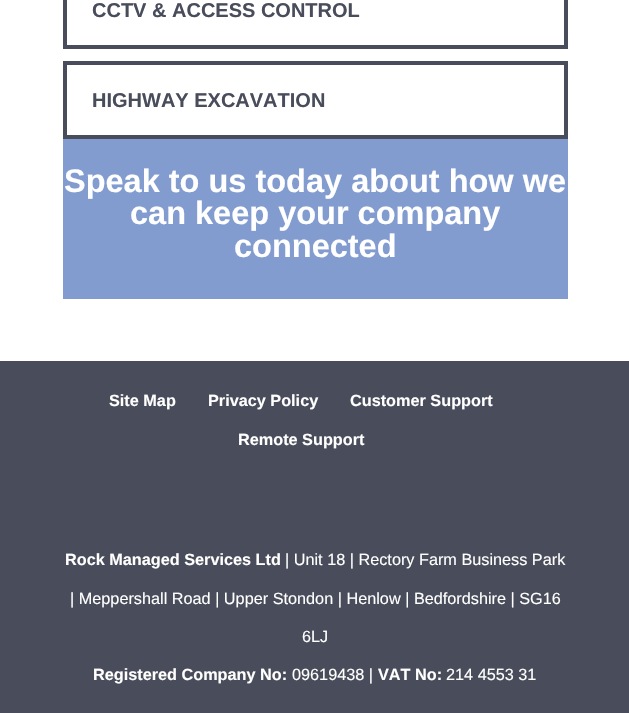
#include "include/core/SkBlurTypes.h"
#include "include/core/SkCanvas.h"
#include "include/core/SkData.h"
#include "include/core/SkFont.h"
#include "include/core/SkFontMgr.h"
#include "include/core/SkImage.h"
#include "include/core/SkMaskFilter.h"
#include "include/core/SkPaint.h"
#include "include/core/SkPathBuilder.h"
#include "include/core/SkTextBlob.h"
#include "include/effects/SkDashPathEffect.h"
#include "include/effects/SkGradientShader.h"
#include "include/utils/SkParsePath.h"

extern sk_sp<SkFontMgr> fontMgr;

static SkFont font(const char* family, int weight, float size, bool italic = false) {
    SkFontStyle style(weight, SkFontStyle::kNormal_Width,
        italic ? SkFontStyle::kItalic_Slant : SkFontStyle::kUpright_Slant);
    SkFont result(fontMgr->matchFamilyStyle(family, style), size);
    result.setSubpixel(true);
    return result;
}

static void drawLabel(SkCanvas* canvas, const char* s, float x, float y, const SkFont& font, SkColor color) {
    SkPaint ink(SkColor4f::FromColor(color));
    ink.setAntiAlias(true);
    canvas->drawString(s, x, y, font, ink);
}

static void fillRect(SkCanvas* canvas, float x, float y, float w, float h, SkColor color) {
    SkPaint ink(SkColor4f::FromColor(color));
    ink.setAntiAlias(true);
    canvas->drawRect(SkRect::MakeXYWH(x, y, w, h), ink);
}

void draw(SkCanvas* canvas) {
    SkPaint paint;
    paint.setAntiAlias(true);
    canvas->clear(0xFFFFFFFF);
    paint.setStroke(true);
    paint.setStrokeWidth(4);
    paint.setColor(0xFF494C5A);
    canvas->drawRect(SkRect::MakeXYWH(65, -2, 501, 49), paint);
    SkFont font1 = font("Liberation Sans", 700, 20);
    drawLabel(canvas, "CCTV & ACCESS CONTROL", 92, 17, font1, 0xFF494C5A);
    canvas->drawRect(SkRect::MakeXYWH(65, 63, 501, 74), paint);
    drawLabel(canvas, "HIGHWAY EXCAVATION", 92, 107, font1, 0xFF494C5A);
    fillRect(canvas, 63, 139, 505, 160, 0xFF829CD0);
    SkFont font2 = font("Liberation Sans", 700, 32.5f);
    drawLabel(canvas, "Speak to us today about how we", 64, 192, font2, 0xFFFFFFFF);
    drawLabel(canvas, "can keep your company", 130, 224, font2, 0xFFFFFFFF);
    drawLabel(canvas, "connected", 234, 257, font2, 0xFFFFFFFF);
    fillRect(canvas, 0, 361, 629, 352, 0xFF494C5A);
    SkFont font3 = font("Liberation Sans", 700, 16.25f);
    drawLabel(canvas, "Site Map", 109, 406, font3, 0xFFFFFFFF);
    drawLabel(canvas, "Privacy Policy", 208, 406, font3, 0xFFFFFFFF);
    drawLabel(canvas, "Customer Support", 350, 406, font3, 0xFFFFFFFF);
    drawLabel(canvas, "Remote Support", 238, 445, font3, 0xFFFFFFFF);
    drawLabel(canvas, "Rock Managed Services Ltd", 65, 565, font3, 0xFFFFFFFF);
    SkFont font4 = font("Liberation Sans", 400, 16.25f);
    drawLabel(canvas, "| Unit 18 | Rectory Farm Business Park", 285, 565, font4, 0xFFFFFFFF);
    drawLabel(canvas, "| Meppershall Road | Upper Stondon | Henlow | Bedfordshire | SG16", 70, 604, font4, 0xFFFFFFFF);
    drawLabel(canvas, "6LJ", 302, 642, font4, 0xFFFFFFFF);
    drawLabel(canvas, "Registered Company No:", 93, 680, font3, 0xFFFFFFFF);
    drawLabel(canvas, "09619438 |", 292, 680, font4, 0xFFFFFFFF);
    drawLabel(canvas, "VAT No:", 378, 680, font3, 0xFFFFFFFF);
    drawLabel(canvas, "214 4553 31", 446, 680, font4, 0xFFFFFFFF);
}
